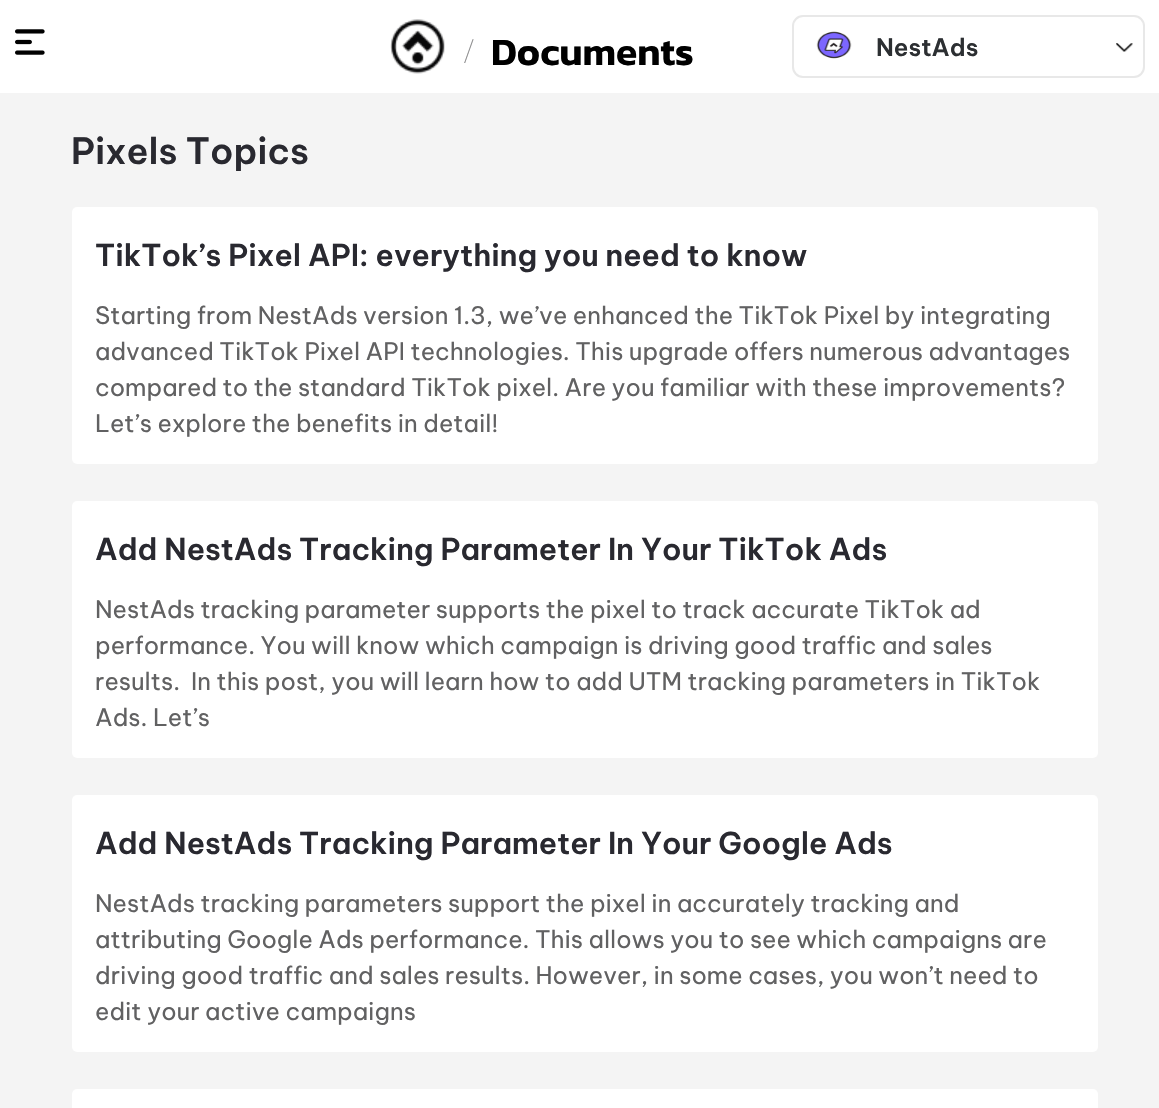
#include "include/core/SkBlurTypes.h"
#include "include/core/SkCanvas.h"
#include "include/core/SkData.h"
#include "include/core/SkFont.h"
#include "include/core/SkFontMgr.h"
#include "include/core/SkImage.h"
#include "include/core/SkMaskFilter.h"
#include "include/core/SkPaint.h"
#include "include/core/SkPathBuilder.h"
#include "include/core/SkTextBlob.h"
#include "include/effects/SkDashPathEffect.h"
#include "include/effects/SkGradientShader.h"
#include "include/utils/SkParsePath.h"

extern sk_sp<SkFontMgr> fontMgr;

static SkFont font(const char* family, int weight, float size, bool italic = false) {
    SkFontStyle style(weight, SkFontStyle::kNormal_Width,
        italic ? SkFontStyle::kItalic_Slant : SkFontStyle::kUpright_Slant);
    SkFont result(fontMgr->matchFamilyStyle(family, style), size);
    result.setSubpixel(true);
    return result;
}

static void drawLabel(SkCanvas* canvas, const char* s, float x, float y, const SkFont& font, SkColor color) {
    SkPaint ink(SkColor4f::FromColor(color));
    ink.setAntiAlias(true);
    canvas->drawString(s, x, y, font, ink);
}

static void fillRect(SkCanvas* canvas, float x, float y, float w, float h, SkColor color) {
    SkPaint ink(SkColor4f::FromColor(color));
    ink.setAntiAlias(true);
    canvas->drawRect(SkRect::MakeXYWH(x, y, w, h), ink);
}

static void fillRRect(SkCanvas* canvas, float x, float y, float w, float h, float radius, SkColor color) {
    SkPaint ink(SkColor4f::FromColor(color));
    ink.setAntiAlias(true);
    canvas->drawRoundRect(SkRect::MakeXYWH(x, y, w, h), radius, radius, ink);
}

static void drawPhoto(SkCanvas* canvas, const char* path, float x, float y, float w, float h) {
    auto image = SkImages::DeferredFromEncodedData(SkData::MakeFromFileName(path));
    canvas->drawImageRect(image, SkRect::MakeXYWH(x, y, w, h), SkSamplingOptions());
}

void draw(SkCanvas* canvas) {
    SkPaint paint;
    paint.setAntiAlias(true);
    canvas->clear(0xFFFFFFFF);
    drawPhoto(canvas, "assets/img1.png", 15, 29, 30, 26);
    drawPhoto(canvas, "assets/img2.png", 390, 19, 55, 55);
    SkFont font1 = font("Kanit", 200, 36);
    drawLabel(canvas, "/", 462, 63, font1, 0xFF8D8D8E);
    SkFont font2 = font("Kanit", 600, 39);
    drawLabel(canvas, "Documents", 491, 65, font2, 0xFF000000);
    drawPhoto(canvas, "assets/img3.png", 1116, 43, 17, 9);
    paint.setStroke(true);
    paint.setStrokeWidth(2);
    paint.setColor(0xFFE8E8E8);
    canvas->drawRoundRect(SkRect::MakeXYWH(793, 16, 351, 61), 10, 10, paint);
    drawPhoto(canvas, "assets/img4.png", 816, 31, 36, 28);
    SkFont font3 = font("Be Vietnam Pro", 600, 24);
    drawLabel(canvas, "NestAds", 876, 56, font3, 0xFF2C2F32);
    fillRect(canvas, 0, 93, 1159, 1015, 0xFFF4F4F4);
    SkFont font4 = font("Be Vietnam Pro", 600, 36);
    drawLabel(canvas, "Pixels Topics", 71, 164, font4, 0xFF292930);
    fillRRect(canvas, 72, 207, 1026, 257, 5, 0xFFFFFFFF);
    SkFont font5 = font("Be Vietnam Pro", 600, 30);
    drawLabel(canvas, "TikTok’s Pixel API: everything you need to know", 95, 266, font5, 0xFF292930);
    SkFont font6 = font("Be Vietnam Pro", 400, 24);
    drawLabel(canvas, "Starting from NestAds version 1.3, we’ve enhanced the TikTok Pixel by integrating", 95, 324, font6, 0xFF616162);
    drawLabel(canvas, "advanced TikTok Pixel API technologies. This upgrade offers numerous advantages", 95, 360, font6, 0xFF616162);
    drawLabel(canvas, "compared to the standard TikTok pixel. Are you familiar with these improvements?", 95, 396, font6, 0xFF616162);
    drawLabel(canvas, "Let’s explore the benefits in detail!", 95, 432, font6, 0xFF616162);
    fillRRect(canvas, 72, 501, 1026, 257, 5, 0xFFFFFFFF);
    drawLabel(canvas, "Add NestAds Tracking Parameter In Your TikTok Ads", 95, 560, font5, 0xFF292930);
    drawLabel(canvas, "NestAds tracking parameter supports the pixel to track accurate TikTok ad", 95, 618, font6, 0xFF616162);
    drawLabel(canvas, "performance. You will know which campaign is driving good traffic and sales", 95, 654, font6, 0xFF616162);
    drawLabel(canvas, "results.  In this post, you will learn how to add UTM tracking parameters in TikTok", 95, 690, font6, 0xFF616162);
    drawLabel(canvas, "Ads. Let’s", 95, 726, font6, 0xFF616162);
    fillRRect(canvas, 72, 795, 1026, 257, 5, 0xFFFFFFFF);
    drawLabel(canvas, "Add NestAds Tracking Parameter In Your Google Ads", 95, 854, font5, 0xFF292930);
    drawLabel(canvas, "NestAds tracking parameters support the pixel in accurately tracking and", 95, 912, font6, 0xFF616162);
    drawLabel(canvas, "attributing Google Ads performance. This allows you to see which campaigns are", 95, 948, font6, 0xFF616162);
    drawLabel(canvas, "driving good traffic and sales results. However, in some cases, you won’t need to", 95, 984, font6, 0xFF616162);
    drawLabel(canvas, "edit your active campaigns", 95, 1020, font6, 0xFF616162);
    fillRRect(canvas, 72, 1089, 1026, 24, 5, 0xFFFFFFFF);
}
